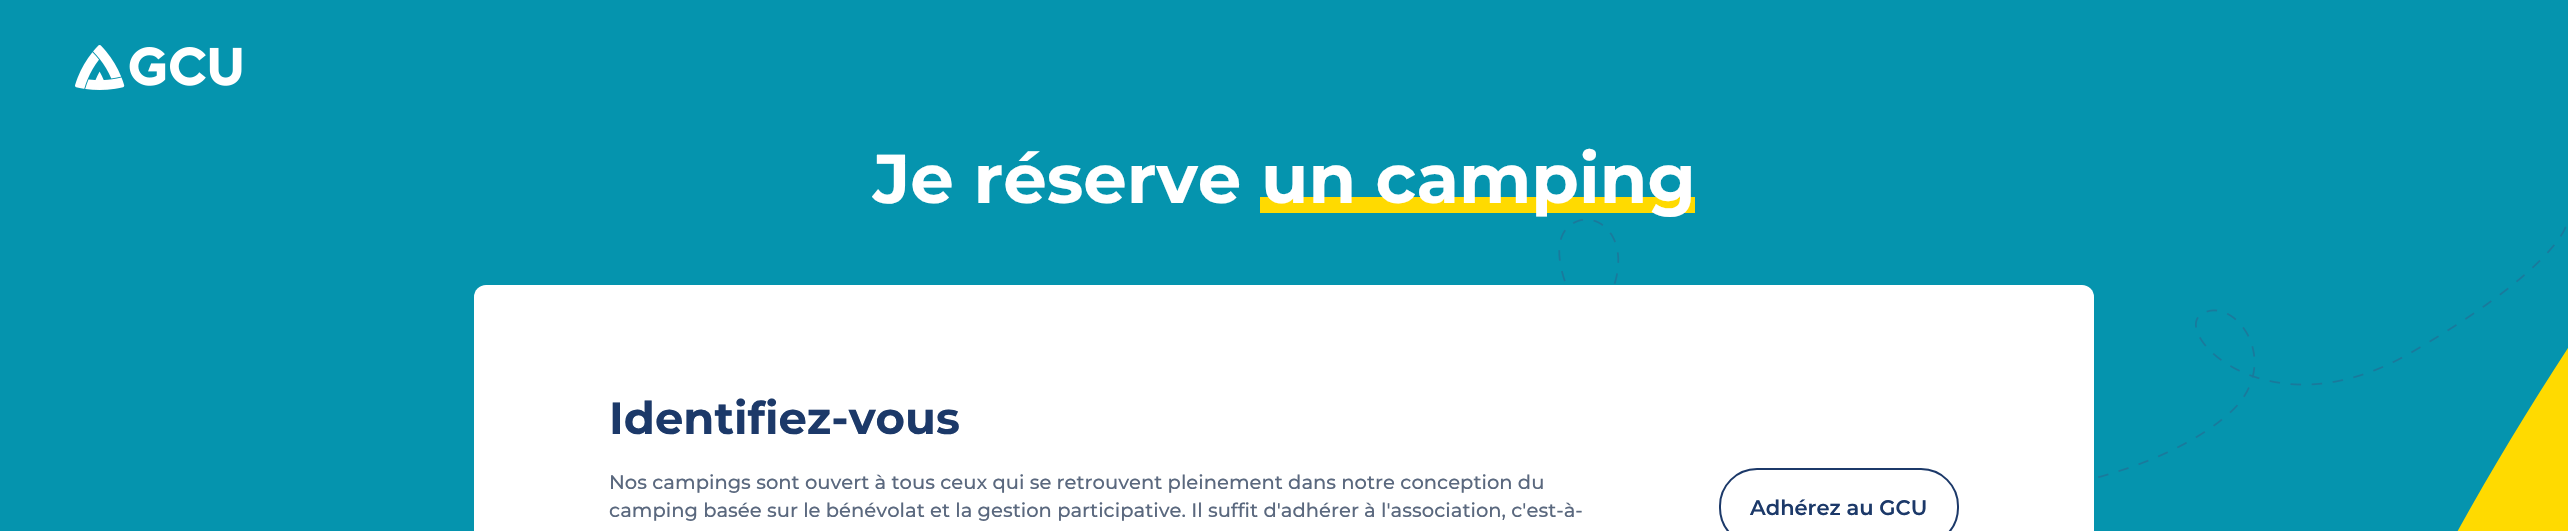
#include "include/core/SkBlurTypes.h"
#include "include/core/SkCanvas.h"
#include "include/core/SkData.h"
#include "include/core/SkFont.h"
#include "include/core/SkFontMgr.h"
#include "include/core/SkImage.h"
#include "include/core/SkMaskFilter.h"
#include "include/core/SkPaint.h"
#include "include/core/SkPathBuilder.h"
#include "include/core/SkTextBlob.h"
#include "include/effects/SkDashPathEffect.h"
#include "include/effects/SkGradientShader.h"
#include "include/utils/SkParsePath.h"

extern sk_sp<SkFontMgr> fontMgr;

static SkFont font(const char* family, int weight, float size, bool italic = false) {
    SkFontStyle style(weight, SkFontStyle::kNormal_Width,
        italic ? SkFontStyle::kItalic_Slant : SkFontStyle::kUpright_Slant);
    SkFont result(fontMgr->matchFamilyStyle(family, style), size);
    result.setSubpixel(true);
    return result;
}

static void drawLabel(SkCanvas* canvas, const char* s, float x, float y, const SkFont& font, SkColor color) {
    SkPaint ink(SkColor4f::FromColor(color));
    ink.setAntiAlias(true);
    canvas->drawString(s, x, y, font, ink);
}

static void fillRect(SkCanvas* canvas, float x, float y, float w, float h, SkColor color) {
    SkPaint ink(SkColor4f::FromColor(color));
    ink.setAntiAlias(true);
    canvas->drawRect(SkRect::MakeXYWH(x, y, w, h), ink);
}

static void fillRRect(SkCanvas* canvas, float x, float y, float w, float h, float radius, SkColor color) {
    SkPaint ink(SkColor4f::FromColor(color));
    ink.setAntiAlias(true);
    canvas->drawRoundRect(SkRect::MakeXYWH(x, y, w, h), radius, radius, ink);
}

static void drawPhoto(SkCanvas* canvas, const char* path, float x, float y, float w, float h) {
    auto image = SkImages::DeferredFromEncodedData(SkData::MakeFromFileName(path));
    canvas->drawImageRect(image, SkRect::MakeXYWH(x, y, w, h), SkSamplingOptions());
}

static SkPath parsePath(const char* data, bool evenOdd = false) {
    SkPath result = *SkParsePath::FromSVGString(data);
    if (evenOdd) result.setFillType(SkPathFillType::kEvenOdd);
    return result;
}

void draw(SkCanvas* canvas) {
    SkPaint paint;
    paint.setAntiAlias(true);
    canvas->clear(0xFFFFFFFF);
    fillRect(canvas, 0, 0, 2568, 135, 0xFF0594AE);
    drawPhoto(canvas, "assets/img1.png", 75, 45, 167, 45);
    paint.setColor(0xFF0594AE);
    canvas->drawPath(parsePath("M0 135H2568V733C2115 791 1588 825 1027 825C667 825 321 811 0 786Z"), paint);
    drawPhoto(canvas, "assets/img2.png", 1558, 219, 1009, 259);
    paint.setColor(0xFFFFDA00);
    canvas->drawPath(parsePath("M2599 301C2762 58 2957-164 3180-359C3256-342 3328-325 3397-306C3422-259 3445-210 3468-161C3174 80 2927 376 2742 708L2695 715C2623 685 2552 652 2482 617C2451 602 2439 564 2456 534C2500 454 2548 377 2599 301Z"), paint);
    SkFont font1 = font("Montserrat", 700, 69);
    drawLabel(canvas, "Je réserve", 873, 203, font1, 0xFFFFFFFF);
    fillRect(canvas, 1260, 197, 435, 16, 0xFFFFDA00);
    drawLabel(canvas, "un camping", 1261, 203, font1, 0xFFFFFFFF);
    fillRRect(canvas, 474, 285, 1620, 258, 12, 0xFFFFFFFF);
    SkFont font2 = font("Montserrat", 700, 45);
    drawLabel(canvas, "Identifiez-vous", 609, 434, font2, 0xFF1C3969);
    SkFont font3 = font("Montserrat", 500, 19.5f);
    drawLabel(canvas, "Nos campings sont ouvert à tous ceux qui se retrouvent pleinement dans notre conception du", 609, 489, font3, 0xFF5A687E);
    drawLabel(canvas, "camping basée sur le bénévolat et la gestion participative. Il suffit d'adhérer à l'association, c'est-à-", 609, 517, font3, 0xFF5A687E);
    paint.setStroke(true);
    paint.setStrokeWidth(2);
    paint.setColor(0xFF1C3969);
    canvas->drawRoundRect(SkRect::MakeXYWH(1720, 469, 238, 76), 37, 37, paint);
    SkFont font4 = font("Montserrat", 600, 21);
    drawLabel(canvas, "Adhérez au GCU", 1750, 515, font4, 0xFF1C3969);
}
